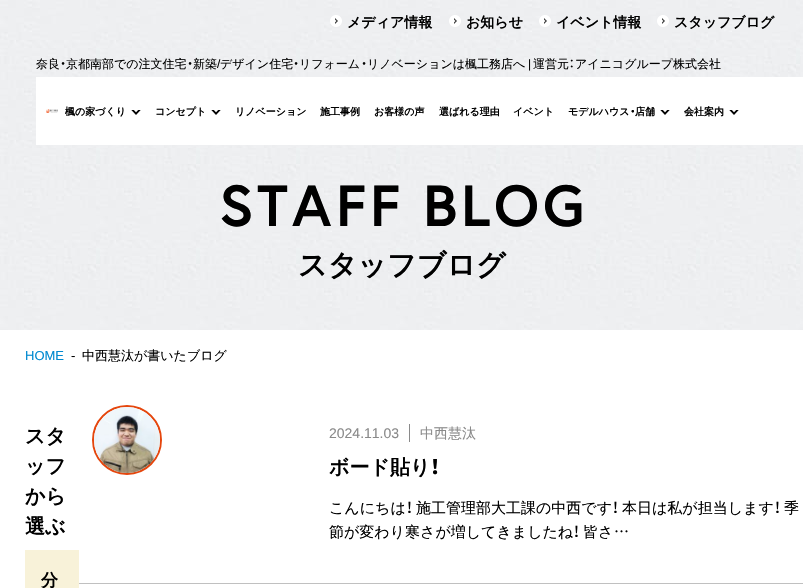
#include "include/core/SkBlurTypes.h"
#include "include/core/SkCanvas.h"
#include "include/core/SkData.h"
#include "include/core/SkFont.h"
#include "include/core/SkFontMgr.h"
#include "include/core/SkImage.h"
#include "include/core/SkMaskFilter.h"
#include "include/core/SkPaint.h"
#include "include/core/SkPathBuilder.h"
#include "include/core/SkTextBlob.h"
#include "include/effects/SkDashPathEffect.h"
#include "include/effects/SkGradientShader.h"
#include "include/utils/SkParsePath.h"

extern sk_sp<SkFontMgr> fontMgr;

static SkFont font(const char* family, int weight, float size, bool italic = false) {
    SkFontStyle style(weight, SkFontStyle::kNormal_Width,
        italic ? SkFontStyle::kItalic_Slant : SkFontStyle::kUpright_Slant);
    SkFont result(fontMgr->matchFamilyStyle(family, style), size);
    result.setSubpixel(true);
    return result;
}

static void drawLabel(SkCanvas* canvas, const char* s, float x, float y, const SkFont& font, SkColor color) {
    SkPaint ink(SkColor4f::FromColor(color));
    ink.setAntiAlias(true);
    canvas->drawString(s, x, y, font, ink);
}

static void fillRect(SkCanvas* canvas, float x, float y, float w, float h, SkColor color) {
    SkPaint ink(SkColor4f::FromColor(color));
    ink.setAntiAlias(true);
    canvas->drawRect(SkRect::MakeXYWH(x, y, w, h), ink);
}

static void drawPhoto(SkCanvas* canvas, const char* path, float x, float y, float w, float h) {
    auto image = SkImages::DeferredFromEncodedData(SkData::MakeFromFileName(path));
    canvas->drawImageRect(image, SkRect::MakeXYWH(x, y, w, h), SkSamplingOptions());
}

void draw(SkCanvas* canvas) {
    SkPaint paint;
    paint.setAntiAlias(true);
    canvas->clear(0xFFFFFFFF);
    drawPhoto(canvas, "assets/img7.png", 0, 0, 803, 330);
    drawPhoto(canvas, "assets/img1.png", 330, 15, 12, 12);
    SkFont font1 = font("WenQuanYi Zen Hei", 700, 14);
    drawLabel(canvas, "メディア情報", 347, 27, font1, 0xFF000000);
    drawPhoto(canvas, "assets/img2.png", 449, 15, 12, 12);
    drawLabel(canvas, "お知らせ", 466, 27, font1, 0xFF000000);
    drawPhoto(canvas, "assets/img3.png", 539, 15, 12, 12);
    drawLabel(canvas, "イベント情報", 556, 27, font1, 0xFF000000);
    drawPhoto(canvas, "assets/img4.png", 657, 15, 12, 12);
    drawLabel(canvas, "スタッフブログ", 674, 27, font1, 0xFF000000);
    SkFont font2 = font("WenQuanYi Zen Hei", 500, 12);
    drawLabel(canvas, "奈良", 36, 68, font2, 0xFF000000);
    SkFont font3 = font("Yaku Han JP", 400, 12);
    drawLabel(canvas, "・", 60, 68, font3, 0xFF000000);
    drawLabel(canvas, "京都南部での注文住宅", 66, 68, font2, 0xFF000000);
    drawLabel(canvas, "・", 187, 68, font3, 0xFF000000);
    drawLabel(canvas, "新築", 193, 68, font2, 0xFF000000);
    SkFont font4 = font("Liberation Sans", 400, 12);
    drawLabel(canvas, "/", 217, 68, font4, 0xFF000000);
    drawLabel(canvas, "デザイン住宅", 220, 68, font2, 0xFF000000);
    drawLabel(canvas, "・", 293, 68, font3, 0xFF000000);
    drawLabel(canvas, "リフォーム", 299, 68, font2, 0xFF000000);
    drawLabel(canvas, "・", 361, 68, font3, 0xFF000000);
    drawLabel(canvas, "リノベーションは楓工務店へ", 367, 68, font2, 0xFF000000);
    drawLabel(canvas, "|", 528, 68, font4, 0xFF000000);
    drawLabel(canvas, "運営元", 533, 68, font2, 0xFF000000);
    drawLabel(canvas, "：", 569, 68, font3, 0xFF000000);
    drawLabel(canvas, "アイニコグループ株式会社", 575, 68, font2, 0xFF000000);
    fillRect(canvas, 36, 77, 767, 68, 0xFFFFFFFF);
    drawPhoto(canvas, "assets/img5.png", 46, 109, 12, 4);
    SkFont font5 = font("WenQuanYi Zen Hei", 700, 10);
    drawLabel(canvas, "楓の家づくり", 65, 115, font5, 0xFF000000);
    drawPhoto(canvas, "assets/img6.png", 131, 110, 10, 5);
    drawLabel(canvas, "コンセプト", 155, 115, font5, 0xFF000000);
    drawPhoto(canvas, "assets/img6.png", 211, 110, 10, 5);
    drawLabel(canvas, "リノベーション", 235, 115, font5, 0xFF000000);
    drawLabel(canvas, "施工事例", 320, 115, font5, 0xFF000000);
    drawLabel(canvas, "お客様の声", 374, 115, font5, 0xFF000000);
    drawLabel(canvas, "選ばれる理由", 439, 115, font5, 0xFF000000);
    drawLabel(canvas, "イベント", 513, 115, font5, 0xFF000000);
    drawLabel(canvas, "モデルハウス", 568, 115, font5, 0xFF000000);
    SkFont font6 = font("Yaku Han JP", 700, 10);
    drawLabel(canvas, "・", 630, 115, font6, 0xFF000000);
    drawLabel(canvas, "店舗", 635, 115, font5, 0xFF000000);
    drawPhoto(canvas, "assets/img6.png", 660, 110, 10, 5);
    drawLabel(canvas, "会社案内", 684, 115, font5, 0xFF000000);
    drawPhoto(canvas, "assets/img6.png", 729, 110, 10, 5);
    SkFont font7 = font("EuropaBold", 700, 58);
    drawLabel(canvas, "S", 219, 226, font7, 0xFF000000);
    drawLabel(canvas, "T", 257, 226, font7, 0xFF000000);
    drawLabel(canvas, "A", 292, 226, font7, 0xFF000000);
    drawLabel(canvas, "F", 336, 226, font7, 0xFF000000);
    drawLabel(canvas, "F", 370, 226, font7, 0xFF000000);
    drawLabel(canvas, "B", 423, 226, font7, 0xFF000000);
    drawLabel(canvas, "L", 461, 226, font7, 0xFF000000);
    drawLabel(canvas, "O", 494, 226, font7, 0xFF000000);
    drawLabel(canvas, "G", 543, 226, font7, 0xFF000000);
    SkFont font8 = font("WenQuanYi Zen Hei", 700, 29);
    drawLabel(canvas, "スタッフブログ", 298, 275, font8, 0xFF000000);
    SkFont font9 = font("Liberation Sans", 400, 13);
    drawLabel(canvas, "HOME", 25, 360, font9, 0xFF0089D0);
    drawLabel(canvas, "-", 71, 360, font9, 0xFF000000);
    SkFont font10 = font("WenQuanYi Zen Hei", 500, 13);
    drawLabel(canvas, "中西慧汰が書いたブログ", 82, 360, font10, 0xFF000000);
    SkFont font11 = font("WenQuanYi Zen Hei", 700, 20);
    drawLabel(canvas, "スタ", 25, 443, font11, 0xFF000000);
    drawLabel(canvas, "ッフ", 25, 473, font11, 0xFF000000);
    drawLabel(canvas, "から", 25, 503, font11, 0xFF000000);
    drawLabel(canvas, "選ぶ", 25, 533, font11, 0xFF000000);
    fillRect(canvas, 25, 550, 54, 38, 0xFFF8F2D9);
    SkFont font12 = font("WenQuanYi Zen Hei", 700, 17);
    drawLabel(canvas, "分", 41, 586, font12, 0xFF000000);
    paint.setStroke(true);
    paint.setStrokeWidth(2);
    paint.setColor(0xFFE5460D);
    canvas->drawCircle(127, 440, 34, paint);
    drawPhoto(canvas, "assets/img8.png", 94, 407, 66, 66);
    SkFont font13 = font("Liberation Sans", 400, 14);
    drawLabel(canvas, "2024.11.03", 329, 438, font13, 0xFF8A8A8A);
    fillRect(canvas, 409, 424, 1, 18, 0xFF8A8A8A);
    SkFont font14 = font("WenQuanYi Zen Hei", 500, 14);
    drawLabel(canvas, "中西慧汰", 420, 438, font14, 0xFF8A8A8A);
    drawLabel(canvas, "ボード貼り", 329, 474, font11, 0xFF000000);
    SkFont font15 = font("Yaku Han JP", 700, 20);
    drawLabel(canvas, "！", 430, 474, font15, 0xFF000000);
    SkFont font16 = font("WenQuanYi Zen Hei", 500, 15);
    drawLabel(canvas, "こんにちは", 329, 513, font16, 0xFF000000);
    SkFont font17 = font("Yaku Han JP", 400, 15);
    drawLabel(canvas, "！", 406, 513, font17, 0xFF000000);
    drawLabel(canvas, "施工管理部大工課の中西です", 416, 513, font16, 0xFF000000);
    drawLabel(canvas, "！", 612, 513, font17, 0xFF000000);
    drawLabel(canvas, "本日は私が担当します", 622, 513, font16, 0xFF000000);
    drawLabel(canvas, "！", 774, 513, font17, 0xFF000000);
    drawLabel(canvas, "季", 784, 513, font16, 0xFF000000);
    drawLabel(canvas, "節が変わり寒さが増してきましたね", 329, 537, font16, 0xFF000000);
    drawLabel(canvas, "！", 573, 537, font17, 0xFF000000);
    drawLabel(canvas, "皆さ", 583, 537, font16, 0xFF000000);
    drawLabel(canvas, "…", 614, 537, font17, 0xFF000000);
    fillRect(canvas, 79, 583, 724, 1, 0xFFC0C0C0);
}
